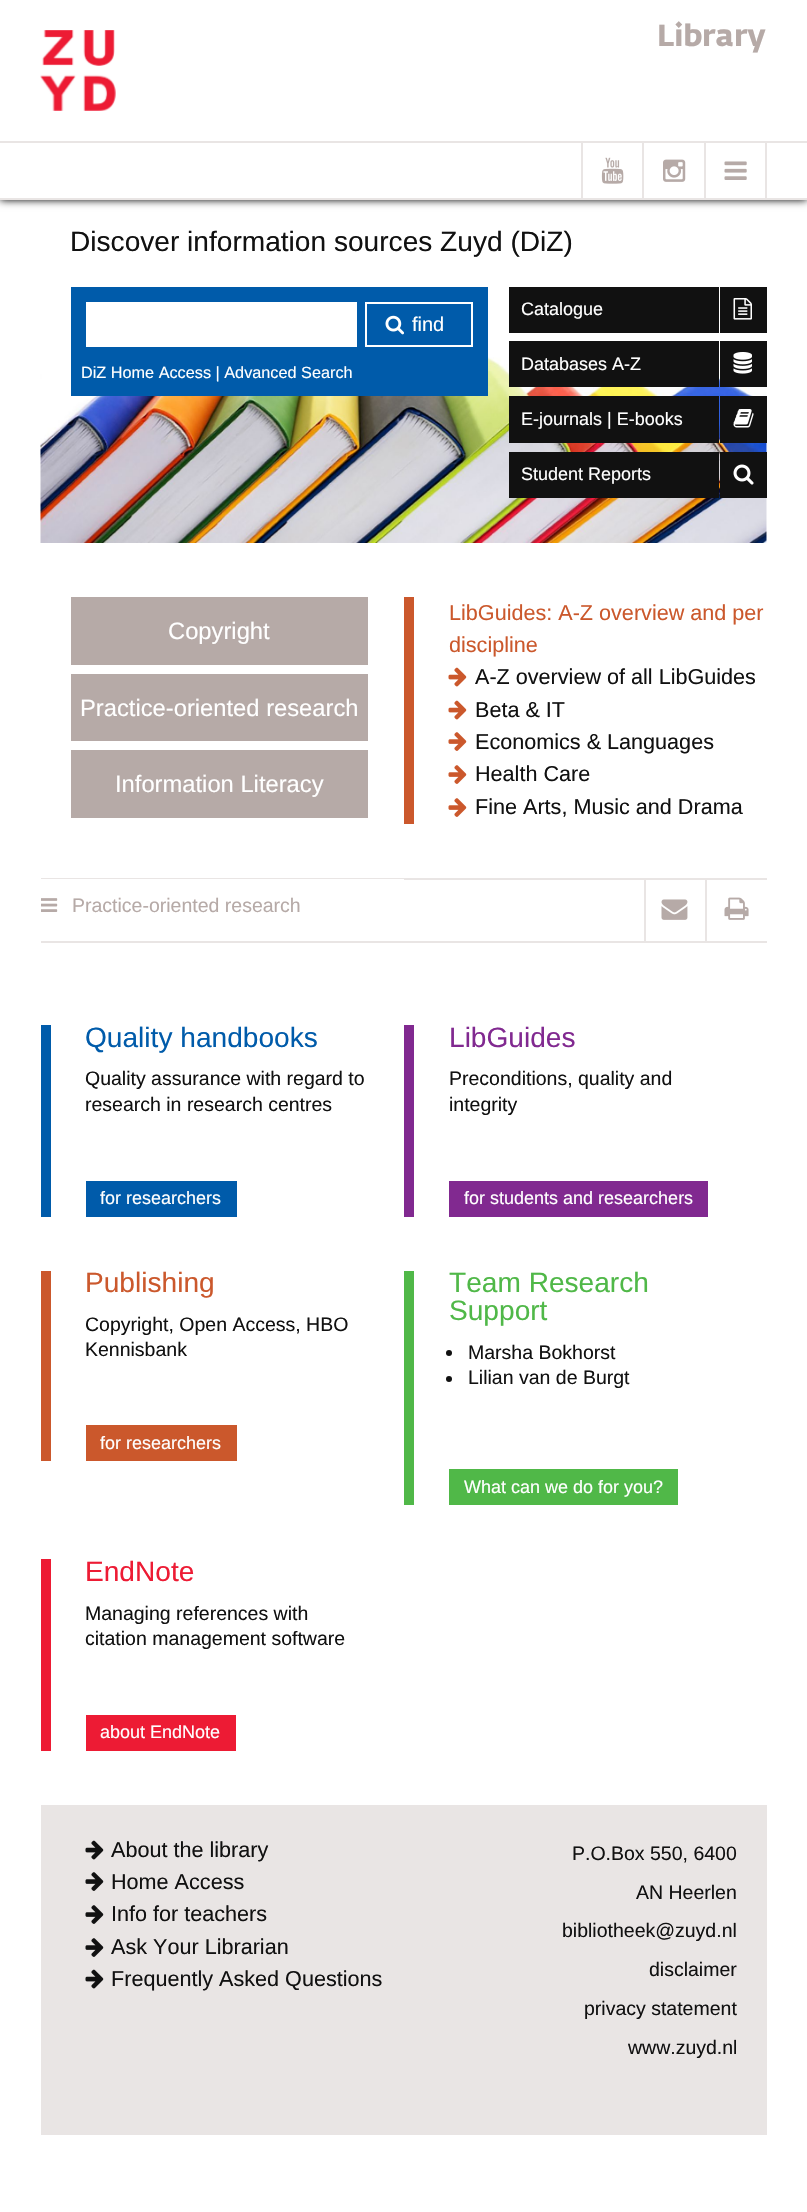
#include "include/core/SkBlurTypes.h"
#include "include/core/SkCanvas.h"
#include "include/core/SkData.h"
#include "include/core/SkFont.h"
#include "include/core/SkFontMgr.h"
#include "include/core/SkImage.h"
#include "include/core/SkMaskFilter.h"
#include "include/core/SkPaint.h"
#include "include/core/SkPathBuilder.h"
#include "include/core/SkTextBlob.h"
#include "include/effects/SkDashPathEffect.h"
#include "include/effects/SkGradientShader.h"
#include "include/utils/SkParsePath.h"

extern sk_sp<SkFontMgr> fontMgr;

static SkFont font(const char* family, int weight, float size, bool italic = false) {
    SkFontStyle style(weight, SkFontStyle::kNormal_Width,
        italic ? SkFontStyle::kItalic_Slant : SkFontStyle::kUpright_Slant);
    SkFont result(fontMgr->matchFamilyStyle(family, style), size);
    result.setSubpixel(true);
    return result;
}

static void drawLabel(SkCanvas* canvas, const char* s, float x, float y, const SkFont& font, SkColor color) {
    SkPaint ink(SkColor4f::FromColor(color));
    ink.setAntiAlias(true);
    canvas->drawString(s, x, y, font, ink);
}

static void fillRect(SkCanvas* canvas, float x, float y, float w, float h, SkColor color) {
    SkPaint ink(SkColor4f::FromColor(color));
    ink.setAntiAlias(true);
    canvas->drawRect(SkRect::MakeXYWH(x, y, w, h), ink);
}

static void drawPhoto(SkCanvas* canvas, const char* path, float x, float y, float w, float h) {
    auto image = SkImages::DeferredFromEncodedData(SkData::MakeFromFileName(path));
    canvas->drawImageRect(image, SkRect::MakeXYWH(x, y, w, h), SkSamplingOptions());
}

void draw(SkCanvas* canvas) {
    SkPaint paint;
    paint.setAntiAlias(true);
    canvas->clear(0xFFFFFFFF);
    paint.setColor(0xFF000000);
    paint.setMaskFilter(SkMaskFilter::MakeBlur(kNormal_SkBlurStyle, 4));
    canvas->drawRect(SkRect::MakeXYWH(0, 0, 807, 200), paint);
    paint.setMaskFilter(nullptr);
    fillRect(canvas, 0, 0, 807, 198, 0xFFFFFFFF);
    fillRect(canvas, 0, 198, 807, 2, 0xFFE9E5E4);
    SkFont font1 = font("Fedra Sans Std", 700, 30);
    drawLabel(canvas, "Library", 657, 46, font1, 0xFFB6AAA7);
    fillRect(canvas, 765, 143, 2, 55, 0xFFE9E5E4);
    fillRect(canvas, 581, 143, 2, 55, 0xFFE9E5E4);
    drawPhoto(canvas, "assets/img1.png", 601, 157, 23, 27);
    fillRect(canvas, 642, 143, 2, 55, 0xFFE9E5E4);
    drawPhoto(canvas, "assets/img2.png", 663, 159, 23, 23);
    fillRect(canvas, 704, 143, 2, 55, 0xFFE9E5E4);
    drawPhoto(canvas, "assets/img3.png", 724, 161, 23, 19);
    fillRect(canvas, 0, 141, 807, 2, 0xFFE9E5E4);
    drawPhoto(canvas, "assets/img4.png", 40, 30, 76, 81);
    drawPhoto(canvas, "assets/img5.png", 40, 349, 727, 194);
    SkFont font2 = font("Liberation Sans", 400, 28.1f);
    drawLabel(canvas, "Discover information sources Zuyd (DiZ)", 70, 251, font2, 0xFF111111);
    fillRect(canvas, 71, 287, 417, 109, 0xFF005BAA);
    fillRect(canvas, 86, 302, 271, 45, 0xFFFFFFFF);
    paint.setStroke(true);
    paint.setStrokeWidth(2);
    paint.setColor(0xFFFFFFFF);
    canvas->drawRect(SkRect::MakeXYWH(366, 303, 106, 43), paint);
    drawPhoto(canvas, "assets/img6.png", 385, 315, 19, 20);
    SkFont font3 = font("Liberation Sans", 400, 20);
    drawLabel(canvas, "find", 412, 331, font3, 0xFFFFFFFF);
    SkFont font4 = font("Liberation Sans", 400, 16.25f);
    drawLabel(canvas, "DiZ Home Access | Advanced Search", 81, 378, font4, 0xFFFFFFFF);
    fillRect(canvas, 509, 287, 210, 46, 0xFF111111);
    SkFont font5 = font("Liberation Sans", 400, 18);
    drawLabel(canvas, "Catalogue", 521, 315, font5, 0xFFFFFFFF);
    fillRect(canvas, 720, 287, 47, 46, 0xFF111111);
    drawPhoto(canvas, "assets/img7.png", 733, 298, 19, 22);
    fillRect(canvas, 509, 341, 210, 46, 0xFF111111);
    drawLabel(canvas, "Databases A-Z", 521, 370, font5, 0xFFFFFFFF);
    fillRect(canvas, 720, 341, 47, 46, 0xFF111111);
    drawPhoto(canvas, "assets/img8.png", 733, 352, 19, 22);
    fillRect(canvas, 509, 396, 210, 47, 0xFF111111);
    drawLabel(canvas, "E-journals | E-books", 521, 425, font5, 0xFFFFFFFF);
    fillRect(canvas, 720, 396, 47, 47, 0xFF111111);
    drawPhoto(canvas, "assets/img9.png", 733, 409, 21, 19);
    fillRect(canvas, 509, 452, 210, 46, 0xFF111111);
    drawLabel(canvas, "Student Reports", 521, 480, font5, 0xFFFFFFFF);
    fillRect(canvas, 720, 452, 47, 46, 0xFF111111);
    drawPhoto(canvas, "assets/img10.png", 733, 464, 21, 21);
    fillRect(canvas, 71, 597, 297, 68, 0xFFB6AAA7);
    SkFont font6 = font("Liberation Sans", 400, 23.75f);
    drawLabel(canvas, "Copyright", 168, 639, font6, 0xFFFFFFFF);
    fillRect(canvas, 71, 674, 297, 67, 0xFFB6AAA7);
    drawLabel(canvas, "Practice-oriented research", 80, 716, font6, 0xFFFFFFFF);
    fillRect(canvas, 71, 750, 297, 68, 0xFFB6AAA7);
    drawLabel(canvas, "Information Literacy", 115, 792, font6, 0xFFFFFFFF);
    fillRect(canvas, 404, 597, 10, 227, 0xFFCB582C);
    SkFont font7 = font("Liberation Sans", 400, 21.6f);
    drawLabel(canvas, "LibGuides: A-Z overview and per", 449, 620, font7, 0xFFCB582C);
    drawLabel(canvas, "discipline", 449, 652, font7, 0xFFCB582C);
    drawPhoto(canvas, "assets/img11.png", 448, 667, 19, 20);
    drawLabel(canvas, "A-Z overview of all LibGuides", 475, 684, font7, 0xFF111111);
    drawPhoto(canvas, "assets/img11.png", 448, 700, 19, 20);
    drawLabel(canvas, "Beta & IT", 475, 717, font7, 0xFF111111);
    drawPhoto(canvas, "assets/img12.png", 448, 732, 19, 19);
    drawLabel(canvas, "Economics & Languages", 475, 749, font7, 0xFF111111);
    drawPhoto(canvas, "assets/img12.png", 448, 765, 19, 19);
    drawLabel(canvas, "Health Care", 475, 781, font7, 0xFF111111);
    drawPhoto(canvas, "assets/img12.png", 448, 798, 19, 19);
    drawLabel(canvas, "Fine Arts, Music and Drama", 475, 814, font7, 0xFF111111);
    fillRect(canvas, 41, 878, 726, 2, 0xFFE9E5E4);
    fillRect(canvas, 41, 941, 726, 2, 0xFFE9E5E4);
    fillRect(canvas, 41, 879, 363, 1, 0xFFFFFFFF);
    drawPhoto(canvas, "assets/img13.png", 41, 898, 17, 14);
    SkFont font8 = font("Liberation Sans", 400, 19.5f);
    drawLabel(canvas, "Practice-oriented research", 72, 912, font8, 0xFFB6AAA7);
    fillRect(canvas, 644, 879, 2, 62, 0xFFE9E5E4);
    drawPhoto(canvas, "assets/img14.png", 661, 899, 27, 21);
    fillRect(canvas, 705, 879, 2, 62, 0xFFE9E5E4);
    drawPhoto(canvas, "assets/img15.png", 724, 897, 25, 23);
    fillRect(canvas, 41, 1025, 10, 192, 0xFF005BAA);
    drawLabel(canvas, "Quality handbooks", 85, 1047, font2, 0xFF005BAA);
    drawLabel(canvas, "Quality assurance with regard to", 85, 1085, font8, 0xFF111111);
    drawLabel(canvas, "research in research centres", 85, 1111, font8, 0xFF111111);
    fillRect(canvas, 86, 1181, 151, 36, 0xFF005BAA);
    drawLabel(canvas, "for researchers", 100, 1204, font5, 0xFFFFFFFF);
    fillRect(canvas, 404, 1025, 10, 192, 0xFF812990);
    drawLabel(canvas, "LibGuides", 449, 1047, font2, 0xFF812990);
    drawLabel(canvas, "Preconditions, quality and", 449, 1085, font8, 0xFF111111);
    drawLabel(canvas, "integrity", 449, 1111, font8, 0xFF111111);
    fillRect(canvas, 449, 1181, 259, 36, 0xFF812990);
    drawLabel(canvas, "for students and researchers", 464, 1204, font5, 0xFFFFFFFF);
    fillRect(canvas, 41, 1271, 10, 190, 0xFFCB582C);
    drawLabel(canvas, "Publishing", 85, 1292, font2, 0xFFCB582C);
    drawLabel(canvas, "Copyright, Open Access, HBO", 85, 1331, font8, 0xFF111111);
    drawLabel(canvas, "Kennisbank", 85, 1356, font8, 0xFF111111);
    fillRect(canvas, 86, 1425, 151, 36, 0xFFCB582C);
    drawLabel(canvas, "for researchers", 100, 1449, font5, 0xFFFFFFFF);
    fillRect(canvas, 404, 1271, 10, 234, 0xFF50B848);
    drawLabel(canvas, "Team Research", 449, 1292, font2, 0xFF50B848);
    drawLabel(canvas, "Support", 449, 1320, font2, 0xFF50B848);
    paint.setStroke(false);
    paint.setColor(0xFF111111);
    canvas->drawCircle(449, 1353, 3, paint);
    drawLabel(canvas, "Marsha Bokhorst", 468, 1359, font8, 0xFF111111);
    canvas->drawCircle(449, 1379, 3, paint);
    drawLabel(canvas, "Lilian van de Burgt", 468, 1384, font8, 0xFF111111);
    fillRect(canvas, 449, 1469, 229, 36, 0xFF50B848);
    drawLabel(canvas, "What can we do for you?", 464, 1493, font5, 0xFFFFFFFF);
    fillRect(canvas, 41, 1559, 10, 192, 0xFFED1B34);
    drawLabel(canvas, "EndNote", 85, 1581, font2, 0xFFED1B34);
    drawLabel(canvas, "Managing references with", 85, 1620, font8, 0xFF111111);
    drawLabel(canvas, "citation management software", 85, 1645, font8, 0xFF111111);
    fillRect(canvas, 86, 1715, 150, 36, 0xFFED1B34);
    drawLabel(canvas, "about EndNote", 100, 1738, font5, 0xFFFFFFFF);
    fillRect(canvas, 41, 1805, 726, 330, 0xFFE9E5E4);
    drawPhoto(canvas, "assets/img16.png", 85, 1840, 19, 20);
    drawLabel(canvas, "About the library", 111, 1857, font7, 0xFF111111);
    drawPhoto(canvas, "assets/img17.png", 85, 1872, 19, 19);
    drawLabel(canvas, "Home Access", 111, 1889, font7, 0xFF111111);
    drawPhoto(canvas, "assets/img17.png", 85, 1905, 19, 19);
    drawLabel(canvas, "Info for teachers", 111, 1921, font7, 0xFF111111);
    drawPhoto(canvas, "assets/img17.png", 85, 1938, 19, 19);
    drawLabel(canvas, "Ask Your Librarian", 111, 1954, font7, 0xFF111111);
    drawPhoto(canvas, "assets/img16.png", 85, 1969, 19, 20);
    drawLabel(canvas, "Frequently Asked Questions", 111, 1986, font7, 0xFF111111);
    drawLabel(canvas, "P.O.Box 550, 6400", 572, 1860, font8, 0xFF111111);
    drawLabel(canvas, "AN Heerlen", 636, 1899, font8, 0xFF111111);
    drawLabel(canvas, "bibliotheek@zuyd.nl", 562, 1937, font8, 0xFF111111);
    drawLabel(canvas, "disclaimer", 649, 1976, font8, 0xFF111111);
    drawLabel(canvas, "privacy statement", 584, 2015, font8, 0xFF111111);
    drawLabel(canvas, "www.zuyd.nl", 628, 2054, font8, 0xFF111111);
}
